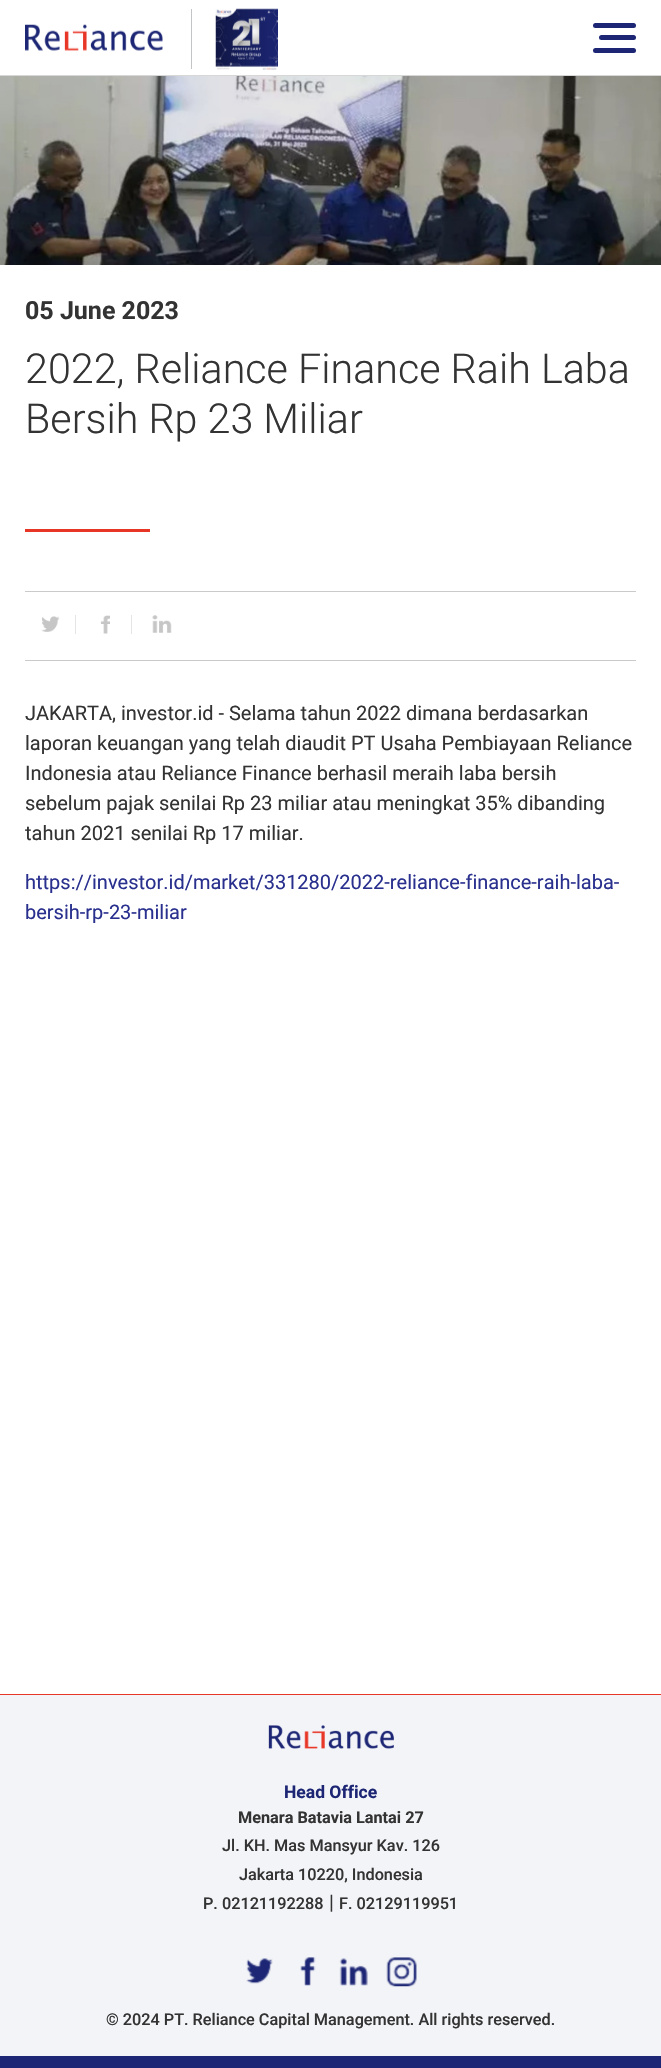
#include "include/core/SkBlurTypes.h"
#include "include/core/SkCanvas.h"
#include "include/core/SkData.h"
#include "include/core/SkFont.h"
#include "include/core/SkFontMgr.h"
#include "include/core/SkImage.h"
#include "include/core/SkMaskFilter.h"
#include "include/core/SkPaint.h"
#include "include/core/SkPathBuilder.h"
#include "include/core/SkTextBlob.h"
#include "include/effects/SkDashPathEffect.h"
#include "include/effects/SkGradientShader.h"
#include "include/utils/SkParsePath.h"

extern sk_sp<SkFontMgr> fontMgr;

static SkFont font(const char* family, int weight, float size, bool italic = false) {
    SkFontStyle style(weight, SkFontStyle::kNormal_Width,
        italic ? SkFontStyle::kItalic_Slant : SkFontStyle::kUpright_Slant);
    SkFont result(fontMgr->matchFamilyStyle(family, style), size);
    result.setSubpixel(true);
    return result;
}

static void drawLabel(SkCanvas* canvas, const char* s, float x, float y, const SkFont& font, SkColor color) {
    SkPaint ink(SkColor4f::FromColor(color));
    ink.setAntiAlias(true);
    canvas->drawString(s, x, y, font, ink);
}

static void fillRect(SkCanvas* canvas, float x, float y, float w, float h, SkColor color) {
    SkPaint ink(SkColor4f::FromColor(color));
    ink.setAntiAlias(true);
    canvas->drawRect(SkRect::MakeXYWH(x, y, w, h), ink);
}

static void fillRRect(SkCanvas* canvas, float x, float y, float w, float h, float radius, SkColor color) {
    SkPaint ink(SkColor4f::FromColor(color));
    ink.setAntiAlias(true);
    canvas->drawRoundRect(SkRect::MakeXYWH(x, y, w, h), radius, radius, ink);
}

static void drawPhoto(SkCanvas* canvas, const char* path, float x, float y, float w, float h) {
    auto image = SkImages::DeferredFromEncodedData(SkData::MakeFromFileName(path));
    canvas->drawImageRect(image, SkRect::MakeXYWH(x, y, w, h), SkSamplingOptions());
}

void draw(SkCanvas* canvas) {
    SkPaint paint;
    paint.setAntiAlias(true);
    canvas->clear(0xFFFFFFFF);
    fillRect(canvas, 0, 75, 661, 1, 0xFFD7D7D7);
    drawPhoto(canvas, "assets/img1.png", 25, 24, 138, 27);
    fillRect(canvas, 191, 9, 1, 60, 0xFFC3C4C5);
    drawPhoto(canvas, "assets/img2.png", 215, 8, 63, 62);
    fillRRect(canvas, 593, 23, 43, 5, 2.5f, 0xFF1C2674);
    fillRRect(canvas, 599, 35, 37, 5, 2.5f, 0xFF1C2674);
    fillRRect(canvas, 593, 48, 43, 5, 2.5f, 0xFF1C2674);
    drawPhoto(canvas, "assets/img3.png", 0, 76, 661, 189);
    SkFont font1 = font("Roboto", 700, 25);
    drawLabel(canvas, "05 June 2023", 25, 319, font1, 0xFF333333);
    SkFont font2 = font("Roboto", 300, 41.25f);
    drawLabel(canvas, "2022, Reliance Finance Raih Laba", 25, 383, font2, 0xFF333333);
    drawLabel(canvas, "Bersih Rp 23 Miliar", 25, 433, font2, 0xFF333333);
    fillRect(canvas, 25, 529, 125, 3, 0xFFE83626);
    fillRect(canvas, 25, 591, 611, 1, 0xFFCACACA);
    fillRect(canvas, 25, 660, 611, 1, 0xFFCACACA);
    drawPhoto(canvas, "assets/img4.png", 41, 616, 19, 16);
    fillRect(canvas, 75, 615, 1, 19, 0xFFE5E5E5);
    drawPhoto(canvas, "assets/img5.png", 100, 615, 10, 19);
    fillRect(canvas, 131, 615, 1, 19, 0xFFE5E5E5);
    drawPhoto(canvas, "assets/img6.png", 152, 615, 20, 18);
    SkFont font3 = font("Roboto", 400, 20);
    drawLabel(canvas, "JAKARTA, investor.id - Selama tahun 2022 dimana berdasarkan", 25, 720, font3, 0xFF333333);
    drawLabel(canvas, "laporan keuangan yang telah diaudit PT Usaha Pembiayaan Reliance", 25, 750, font3, 0xFF333333);
    drawLabel(canvas, "Indonesia atau Reliance Finance berhasil meraih laba bersih", 25, 780, font3, 0xFF333333);
    drawLabel(canvas, "sebelum pajak senilai Rp 23 miliar atau meningkat 35% dibanding", 25, 810, font3, 0xFF333333);
    drawLabel(canvas, "tahun 2021 senilai Rp 17 miliar.", 25, 840, font3, 0xFF333333);
    drawLabel(canvas, "https://investor.id/market/331280/2022-reliance-finance-raih-laba-", 25, 889, font3, 0xFF29308E);
    drawLabel(canvas, "bersih-rp-23-miliar", 25, 919, font3, 0xFF29308E);
    fillRect(canvas, 0, 1695, 661, 361, 0xFFF3F4F8);
    fillRect(canvas, 0, 1694, 661, 1, 0xFFE73726);
    drawPhoto(canvas, "assets/img7.png", 268, 1725, 126, 24);
    SkFont font4 = font("Roboto", 700, 17.5f);
    drawLabel(canvas, "Head Office", 284, 1798, font4, 0xFF1C2674);
    SkFont font5 = font("Roboto", 700, 16.25f);
    drawLabel(canvas, "Menara Batavia Lantai 27", 238, 1823, font5, 0xFF333333);
    SkFont font6 = font("Roboto", 500, 16.25f);
    drawLabel(canvas, "Jl. KH. Mas Mansyur Kav. 126", 222, 1851, font6, 0xFF333333);
    drawLabel(canvas, "Jakarta 10220, Indonesia", 239, 1880, font6, 0xFF333333);
    drawLabel(canvas, "P. 02121192288", 203, 1909, font6, 0xFF333333);
    drawLabel(canvas, "|", 329, 1909, font3, 0xFF333333);
    drawLabel(canvas, "F. 02129119951", 339, 1909, font6, 0xFF333333);
    drawPhoto(canvas, "assets/img8.png", 246, 1958, 27, 26);
    drawPhoto(canvas, "assets/img9.png", 300, 1957, 16, 29);
    drawPhoto(canvas, "assets/img10.png", 339, 1958, 29, 28);
    drawPhoto(canvas, "assets/img11.png", 386, 1957, 31, 30);
    drawLabel(canvas, "© 2024 PT. Reliance Capital Management. All rights reserved.", 106, 2025, font6, 0xFF333333);
    fillRect(canvas, 0, 2056, 661, 12, 0xFF1C2674);
}
